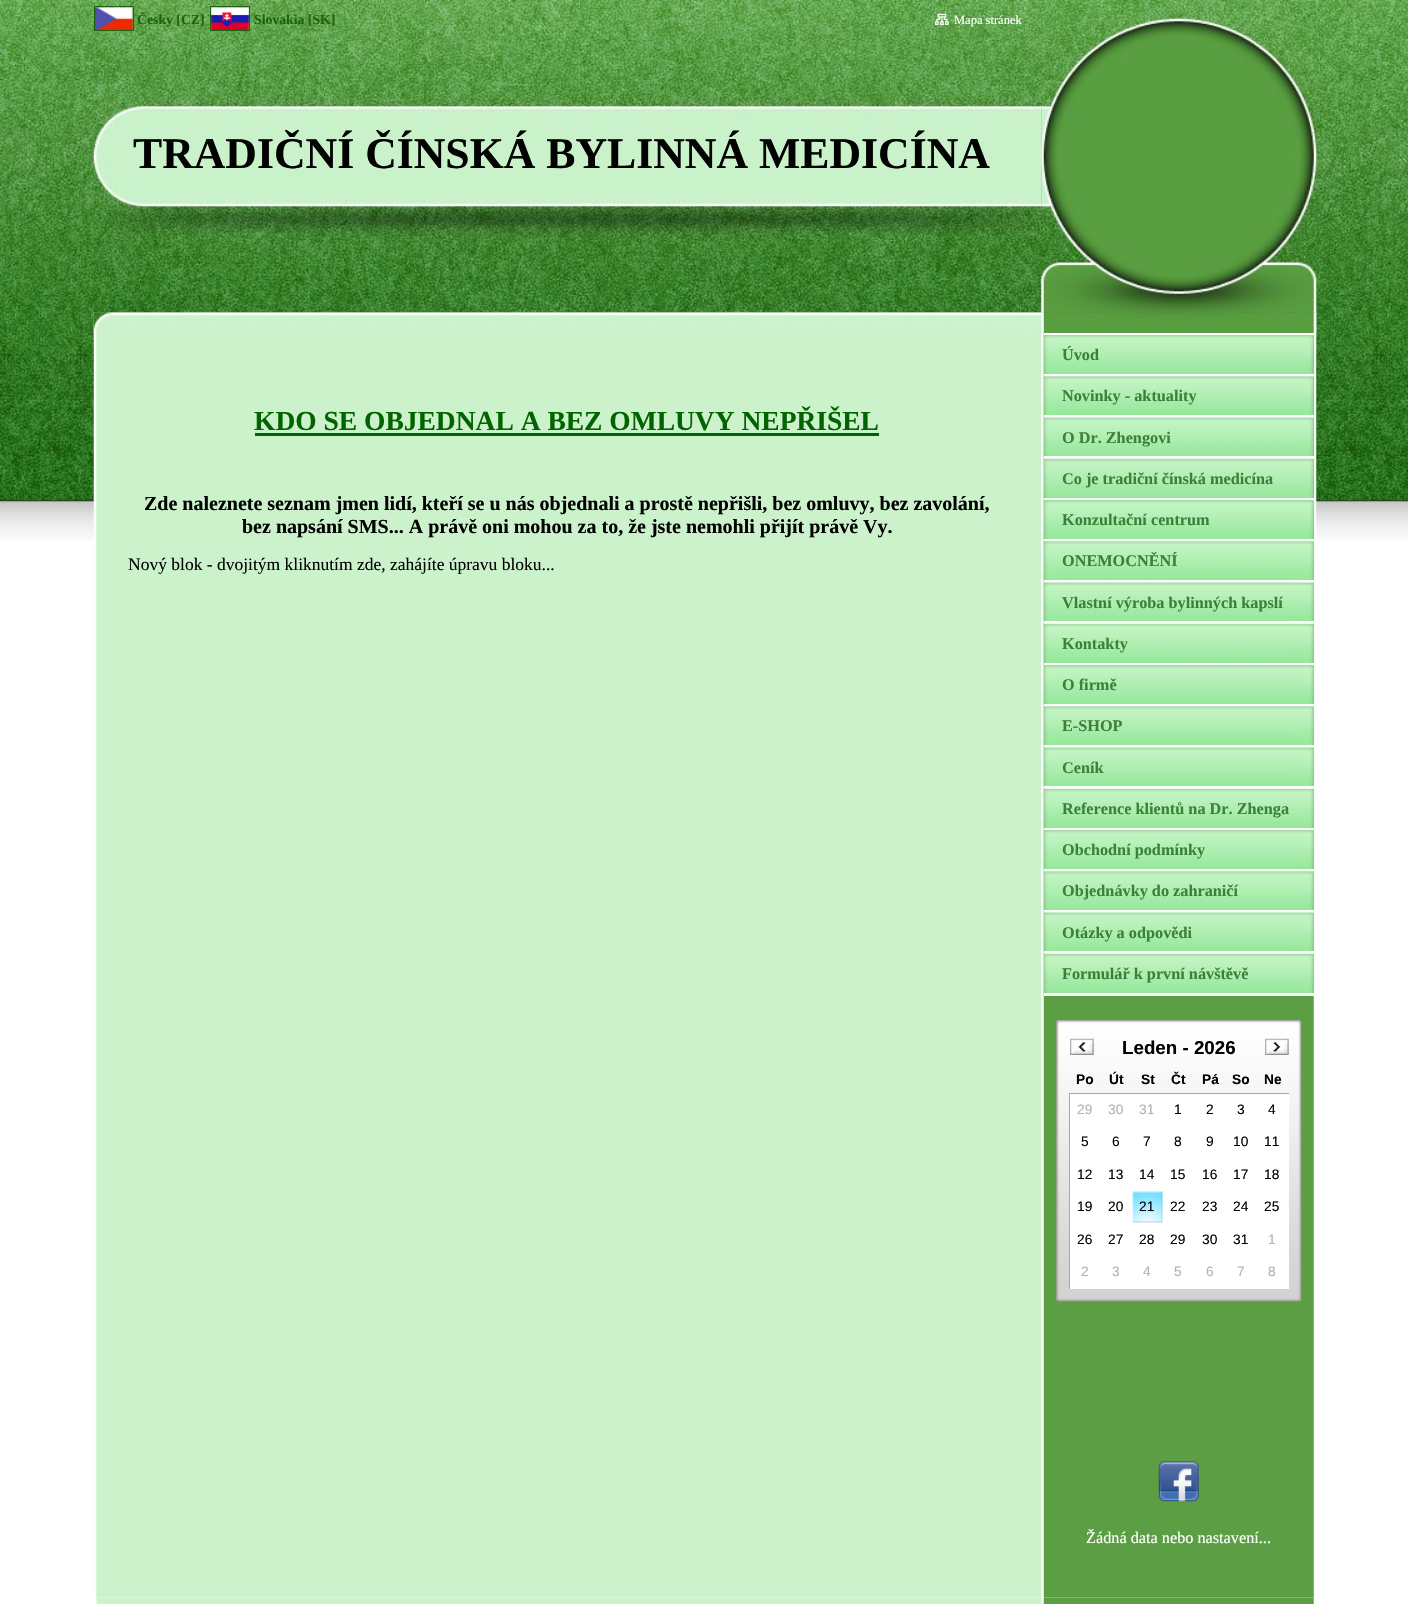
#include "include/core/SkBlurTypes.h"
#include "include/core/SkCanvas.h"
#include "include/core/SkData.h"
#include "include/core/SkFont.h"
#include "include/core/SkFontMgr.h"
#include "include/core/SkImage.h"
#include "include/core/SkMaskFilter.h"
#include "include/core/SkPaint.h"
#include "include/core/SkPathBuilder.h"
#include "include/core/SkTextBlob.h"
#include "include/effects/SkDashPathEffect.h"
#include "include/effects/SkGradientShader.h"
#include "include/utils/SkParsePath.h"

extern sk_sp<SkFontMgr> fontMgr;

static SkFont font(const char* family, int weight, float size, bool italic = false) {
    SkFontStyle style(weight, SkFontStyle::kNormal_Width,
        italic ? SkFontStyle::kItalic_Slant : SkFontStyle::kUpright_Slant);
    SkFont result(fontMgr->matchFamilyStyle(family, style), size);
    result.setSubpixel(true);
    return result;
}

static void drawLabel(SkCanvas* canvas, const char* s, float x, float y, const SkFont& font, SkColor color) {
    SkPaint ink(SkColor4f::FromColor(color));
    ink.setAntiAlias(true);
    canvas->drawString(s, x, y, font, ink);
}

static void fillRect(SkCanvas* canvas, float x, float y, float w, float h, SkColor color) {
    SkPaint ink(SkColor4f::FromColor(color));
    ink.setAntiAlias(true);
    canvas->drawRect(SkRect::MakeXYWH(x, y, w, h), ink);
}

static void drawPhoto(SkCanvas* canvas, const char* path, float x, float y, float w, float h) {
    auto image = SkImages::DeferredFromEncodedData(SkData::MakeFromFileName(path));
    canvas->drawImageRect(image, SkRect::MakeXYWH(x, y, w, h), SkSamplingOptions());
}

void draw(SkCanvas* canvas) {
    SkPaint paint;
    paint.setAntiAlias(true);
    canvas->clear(0xFFFFFFFF);
    drawPhoto(canvas, "assets/img1.png", 0, 0, 1408, 541);
    drawPhoto(canvas, "assets/img7.png", 93, 312, 1224, 1286);
    drawPhoto(canvas, "assets/img2.png", 93, 0, 949, 313);
    paint.setStroke(true);
    paint.setStrokeWidth(1);
    paint.setColor(0xFF1D620F);
    canvas->drawRect(SkRect::MakeXYWH(94.5f, 6.5f, 39, 24), paint);
    drawPhoto(canvas, "assets/img3.png", 95, 7, 38, 23);
    SkFont font1 = font("Liberation Serif", 700, 13.75f);
    drawLabel(canvas, "Česky [CZ]", 137, 24, font1, 0xFF1D620F);
    canvas->drawRect(SkRect::MakeXYWH(210.5f, 6.5f, 39, 24), paint);
    drawPhoto(canvas, "assets/img4.png", 211, 7, 38, 23);
    drawLabel(canvas, "Slovakia [SK]", 254, 24, font1, 0xFF1D620F);
    drawPhoto(canvas, "assets/img5.png", 935, 13, 14, 12);
    SkFont font2 = font("Liberation Serif", 400, 12.5f);
    drawLabel(canvas, "Mapa stránek", 954, 24, font2, 0xFFFFFFFF);
    SkFont font3 = font("Liberation Serif", 700, 43.75f);
    drawLabel(canvas, "TRADIČNÍ ČÍNSKÁ BYLINNÁ MEDICÍNA", 133, 168, font3, 0xFF000100);
    drawPhoto(canvas, "assets/img6.png", 1041, 0, 276, 313);
    drawPhoto(canvas, "assets/img8.png", 93, 312, 1224, 21);
    SkFont font4 = font("Liberation Serif", 700, 27.5f);
    drawLabel(canvas, "KDO SE OBJEDNAL A BEZ OMLUVY NEPŘIŠEL", 254, 430, font4, 0xFF006400);
    fillRect(canvas, 255, 433, 624, 3, 0xFF006400);
    SkFont font5 = font("Liberation Serif", 700, 20);
    drawLabel(canvas, "Zde naleznete seznam jmen lidí, kteří se u nás objednali a prostě nepřišli, bez omluvy, bez zavolání,", 144, 510, font5, 0xFF000100);
    drawLabel(canvas, "bez napsání SMS... A právě oni mohou za to, že jste nemohli přijít právě Vy.", 242, 533, font5, 0xFF000100);
    SkFont font6 = font("Liberation Serif", 400, 17.5f);
    drawLabel(canvas, "Nový blok - dvojitým kliknutím zde, zahájíte úpravu bloku...", 128, 570, font6, 0xFF000100);
    fillRect(canvas, 1044, 333, 270, 3, 0xFFFFFFFF);
    drawPhoto(canvas, "assets/img9.png", 1043, 335, 271, 42);
    fillRect(canvas, 1044, 374, 270, 3, 0xFFFFFFFF);
    SkFont font7 = font("Liberation Serif", 700, 16.25f);
    drawLabel(canvas, "Úvod", 1062, 360, font7, 0xFF3A8238);
    drawPhoto(canvas, "assets/img10.png", 1043, 376, 271, 42);
    fillRect(canvas, 1044, 415, 270, 3, 0xFFFFFFFF);
    drawLabel(canvas, "Novinky - aktuality", 1062, 401, font7, 0xFF3A8238);
    drawPhoto(canvas, "assets/img11.png", 1043, 417, 271, 42);
    fillRect(canvas, 1044, 456, 270, 3, 0xFFFFFFFF);
    drawLabel(canvas, "O Dr. Zhengovi", 1062, 443, font7, 0xFF3A8238);
    drawPhoto(canvas, "assets/img12.png", 1043, 458, 271, 42);
    fillRect(canvas, 1044, 498, 270, 3, 0xFFFFFFFF);
    drawLabel(canvas, "Co je tradiční čínská medicína", 1062, 484, font7, 0xFF3A8238);
    drawPhoto(canvas, "assets/img9.png", 1043, 500, 271, 42);
    fillRect(canvas, 1044, 539, 270, 3, 0xFFFFFFFF);
    drawLabel(canvas, "Konzultační centrum", 1062, 525, font7, 0xFF3A8238);
    drawPhoto(canvas, "assets/img10.png", 1043, 541, 271, 42);
    fillRect(canvas, 1044, 580, 270, 3, 0xFFFFFFFF);
    drawLabel(canvas, "ONEMOCNĚNÍ", 1062, 566, font7, 0xFF3A8238);
    drawPhoto(canvas, "assets/img13.png", 1043, 582, 271, 42);
    fillRect(canvas, 1044, 621, 270, 3, 0xFFFFFFFF);
    drawLabel(canvas, "Vlastní výroba bylinných kapslí", 1062, 608, font7, 0xFF3A8238);
    drawPhoto(canvas, "assets/img12.png", 1043, 623, 271, 42);
    fillRect(canvas, 1044, 663, 270, 3, 0xFFFFFFFF);
    drawLabel(canvas, "Kontakty", 1062, 649, font7, 0xFF3A8238);
    drawPhoto(canvas, "assets/img9.png", 1043, 665, 271, 42);
    fillRect(canvas, 1044, 704, 270, 3, 0xFFFFFFFF);
    drawLabel(canvas, "O firmě", 1062, 690, font7, 0xFF3A8238);
    drawPhoto(canvas, "assets/img10.png", 1043, 706, 271, 42);
    fillRect(canvas, 1044, 745, 270, 3, 0xFFFFFFFF);
    drawLabel(canvas, "E-SHOP", 1062, 731, font7, 0xFF3A8238);
    drawPhoto(canvas, "assets/img11.png", 1043, 747, 271, 42);
    fillRect(canvas, 1044, 786, 270, 3, 0xFFFFFFFF);
    drawLabel(canvas, "Ceník", 1062, 773, font7, 0xFF3A8238);
    drawPhoto(canvas, "assets/img12.png", 1043, 788, 271, 42);
    fillRect(canvas, 1044, 828, 270, 3, 0xFFFFFFFF);
    drawLabel(canvas, "Reference klientů na Dr. Zhenga", 1062, 814, font7, 0xFF3A8238);
    drawPhoto(canvas, "assets/img9.png", 1043, 830, 271, 42);
    fillRect(canvas, 1044, 869, 270, 3, 0xFFFFFFFF);
    drawLabel(canvas, "Obchodní podmínky", 1062, 855, font7, 0xFF3A8238);
    drawPhoto(canvas, "assets/img10.png", 1043, 871, 271, 42);
    fillRect(canvas, 1044, 910, 270, 3, 0xFFFFFFFF);
    drawLabel(canvas, "Objednávky do zahraničí", 1062, 896, font7, 0xFF3A8238);
    drawPhoto(canvas, "assets/img11.png", 1043, 912, 271, 42);
    fillRect(canvas, 1044, 951, 270, 3, 0xFFFFFFFF);
    drawLabel(canvas, "Otázky a odpovědi", 1062, 938, font7, 0xFF3A8238);
    drawPhoto(canvas, "assets/img12.png", 1043, 953, 271, 42);
    fillRect(canvas, 1044, 993, 270, 3, 0xFFFFFFFF);
    drawLabel(canvas, "Formulář k první návštěvě", 1062, 979, font7, 0xFF3A8238);
    drawPhoto(canvas, "assets/img14.png", 1056, 1020, 246, 282);
    drawPhoto(canvas, "assets/img15.png", 1070, 1038, 24, 17);
    SkFont font8 = font("Liberation Sans", 700, 18.75f);
    drawLabel(canvas, "Leden - 2026", 1122, 1054, font8, 0xFF000100);
    drawPhoto(canvas, "assets/img16.png", 1265, 1038, 24, 17);
    fillRect(canvas, 1069, 1093, 1, 196, 0xFFA7A7A7);
    fillRect(canvas, 1070, 1093, 219, 1, 0xFFA7A7A7);
    SkFont font9 = font("Liberation Sans", 700, 13.75f);
    drawLabel(canvas, "Po", 1076, 1084, font9, 0xFF000100);
    drawLabel(canvas, "Út", 1109, 1084, font9, 0xFF000100);
    drawLabel(canvas, "St", 1141, 1084, font9, 0xFF000100);
    drawLabel(canvas, "Čt", 1171, 1084, font9, 0xFF000100);
    drawLabel(canvas, "Pá", 1202, 1084, font9, 0xFF000100);
    drawLabel(canvas, "So", 1232, 1084, font9, 0xFF000100);
    drawLabel(canvas, "Ne", 1264, 1084, font9, 0xFF000100);
    fillRect(canvas, 1070, 1094, 219, 32, 0xFFFFFFFF);
    SkFont font10 = font("Liberation Sans", 400, 13.75f);
    drawLabel(canvas, "29", 1077, 1114, font10, 0xFFB2B2B2);
    drawLabel(canvas, "30", 1108, 1114, font10, 0xFFB2B2B2);
    drawLabel(canvas, "31", 1139, 1114, font10, 0xFFB2B2B2);
    drawLabel(canvas, "1", 1174, 1114, font10, 0xFF000100);
    drawLabel(canvas, "2", 1206, 1114, font10, 0xFF000100);
    drawLabel(canvas, "3", 1237, 1114, font10, 0xFF000100);
    drawLabel(canvas, "4", 1268, 1114, font10, 0xFF000100);
    fillRect(canvas, 1070, 1126, 219, 33, 0xFFFFFFFF);
    drawLabel(canvas, "5", 1081, 1146, font10, 0xFF000100);
    drawLabel(canvas, "6", 1112, 1146, font10, 0xFF000100);
    drawLabel(canvas, "7", 1143, 1146, font10, 0xFF000100);
    drawLabel(canvas, "8", 1174, 1146, font10, 0xFF000100);
    drawLabel(canvas, "9", 1206, 1146, font10, 0xFF000100);
    drawLabel(canvas, "10", 1233, 1146, font10, 0xFF000100);
    drawLabel(canvas, "11", 1264, 1146, font10, 0xFF000100);
    fillRect(canvas, 1070, 1159, 219, 32, 0xFFFFFFFF);
    drawLabel(canvas, "12", 1077, 1179, font10, 0xFF000100);
    drawLabel(canvas, "13", 1108, 1179, font10, 0xFF000100);
    drawLabel(canvas, "14", 1139, 1179, font10, 0xFF000100);
    drawLabel(canvas, "15", 1170, 1179, font10, 0xFF000100);
    drawLabel(canvas, "16", 1202, 1179, font10, 0xFF000100);
    drawLabel(canvas, "17", 1233, 1179, font10, 0xFF000100);
    drawLabel(canvas, "18", 1264, 1179, font10, 0xFF000100);
    fillRect(canvas, 1070, 1191, 219, 33, 0xFFFFFFFF);
    drawLabel(canvas, "19", 1077, 1211, font10, 0xFF000100);
    drawLabel(canvas, "20", 1108, 1211, font10, 0xFF000100);
    drawPhoto(canvas, "assets/img17.png", 1132, 1191, 31, 32);
    drawLabel(canvas, "21", 1139, 1211, font10, 0xFF000100);
    drawLabel(canvas, "22", 1170, 1211, font10, 0xFF000100);
    drawLabel(canvas, "23", 1202, 1211, font10, 0xFF000100);
    drawLabel(canvas, "24", 1233, 1211, font10, 0xFF000100);
    drawLabel(canvas, "25", 1264, 1211, font10, 0xFF000100);
    fillRect(canvas, 1070, 1224, 219, 32, 0xFFFFFFFF);
    drawLabel(canvas, "26", 1077, 1244, font10, 0xFF000100);
    drawLabel(canvas, "27", 1108, 1244, font10, 0xFF000100);
    drawLabel(canvas, "28", 1139, 1244, font10, 0xFF000100);
    drawLabel(canvas, "29", 1170, 1244, font10, 0xFF000100);
    drawLabel(canvas, "30", 1202, 1244, font10, 0xFF000100);
    drawLabel(canvas, "31", 1233, 1244, font10, 0xFF000100);
    drawLabel(canvas, "1", 1268, 1244, font10, 0xFFB2B2B2);
    fillRect(canvas, 1070, 1256, 219, 33, 0xFFFFFFFF);
    drawLabel(canvas, "2", 1081, 1276, font10, 0xFFB2B2B2);
    drawLabel(canvas, "3", 1112, 1276, font10, 0xFFB2B2B2);
    drawLabel(canvas, "4", 1143, 1276, font10, 0xFFB2B2B2);
    drawLabel(canvas, "5", 1174, 1276, font10, 0xFFB2B2B2);
    drawLabel(canvas, "6", 1206, 1276, font10, 0xFFB2B2B2);
    drawLabel(canvas, "7", 1237, 1276, font10, 0xFFB2B2B2);
    drawLabel(canvas, "8", 1268, 1276, font10, 0xFFB2B2B2);
    drawPhoto(canvas, "assets/img18.png", 1158, 1461, 41, 41);
    SkFont font11 = font("Liberation Serif", 400, 16.25f);
    drawLabel(canvas, "Žádná data nebo nastavení...", 1086, 1543, font11, 0xFFFFFFFF);
    drawPhoto(canvas, "assets/img19.png", 96, 1597, 1219, 7);
}
